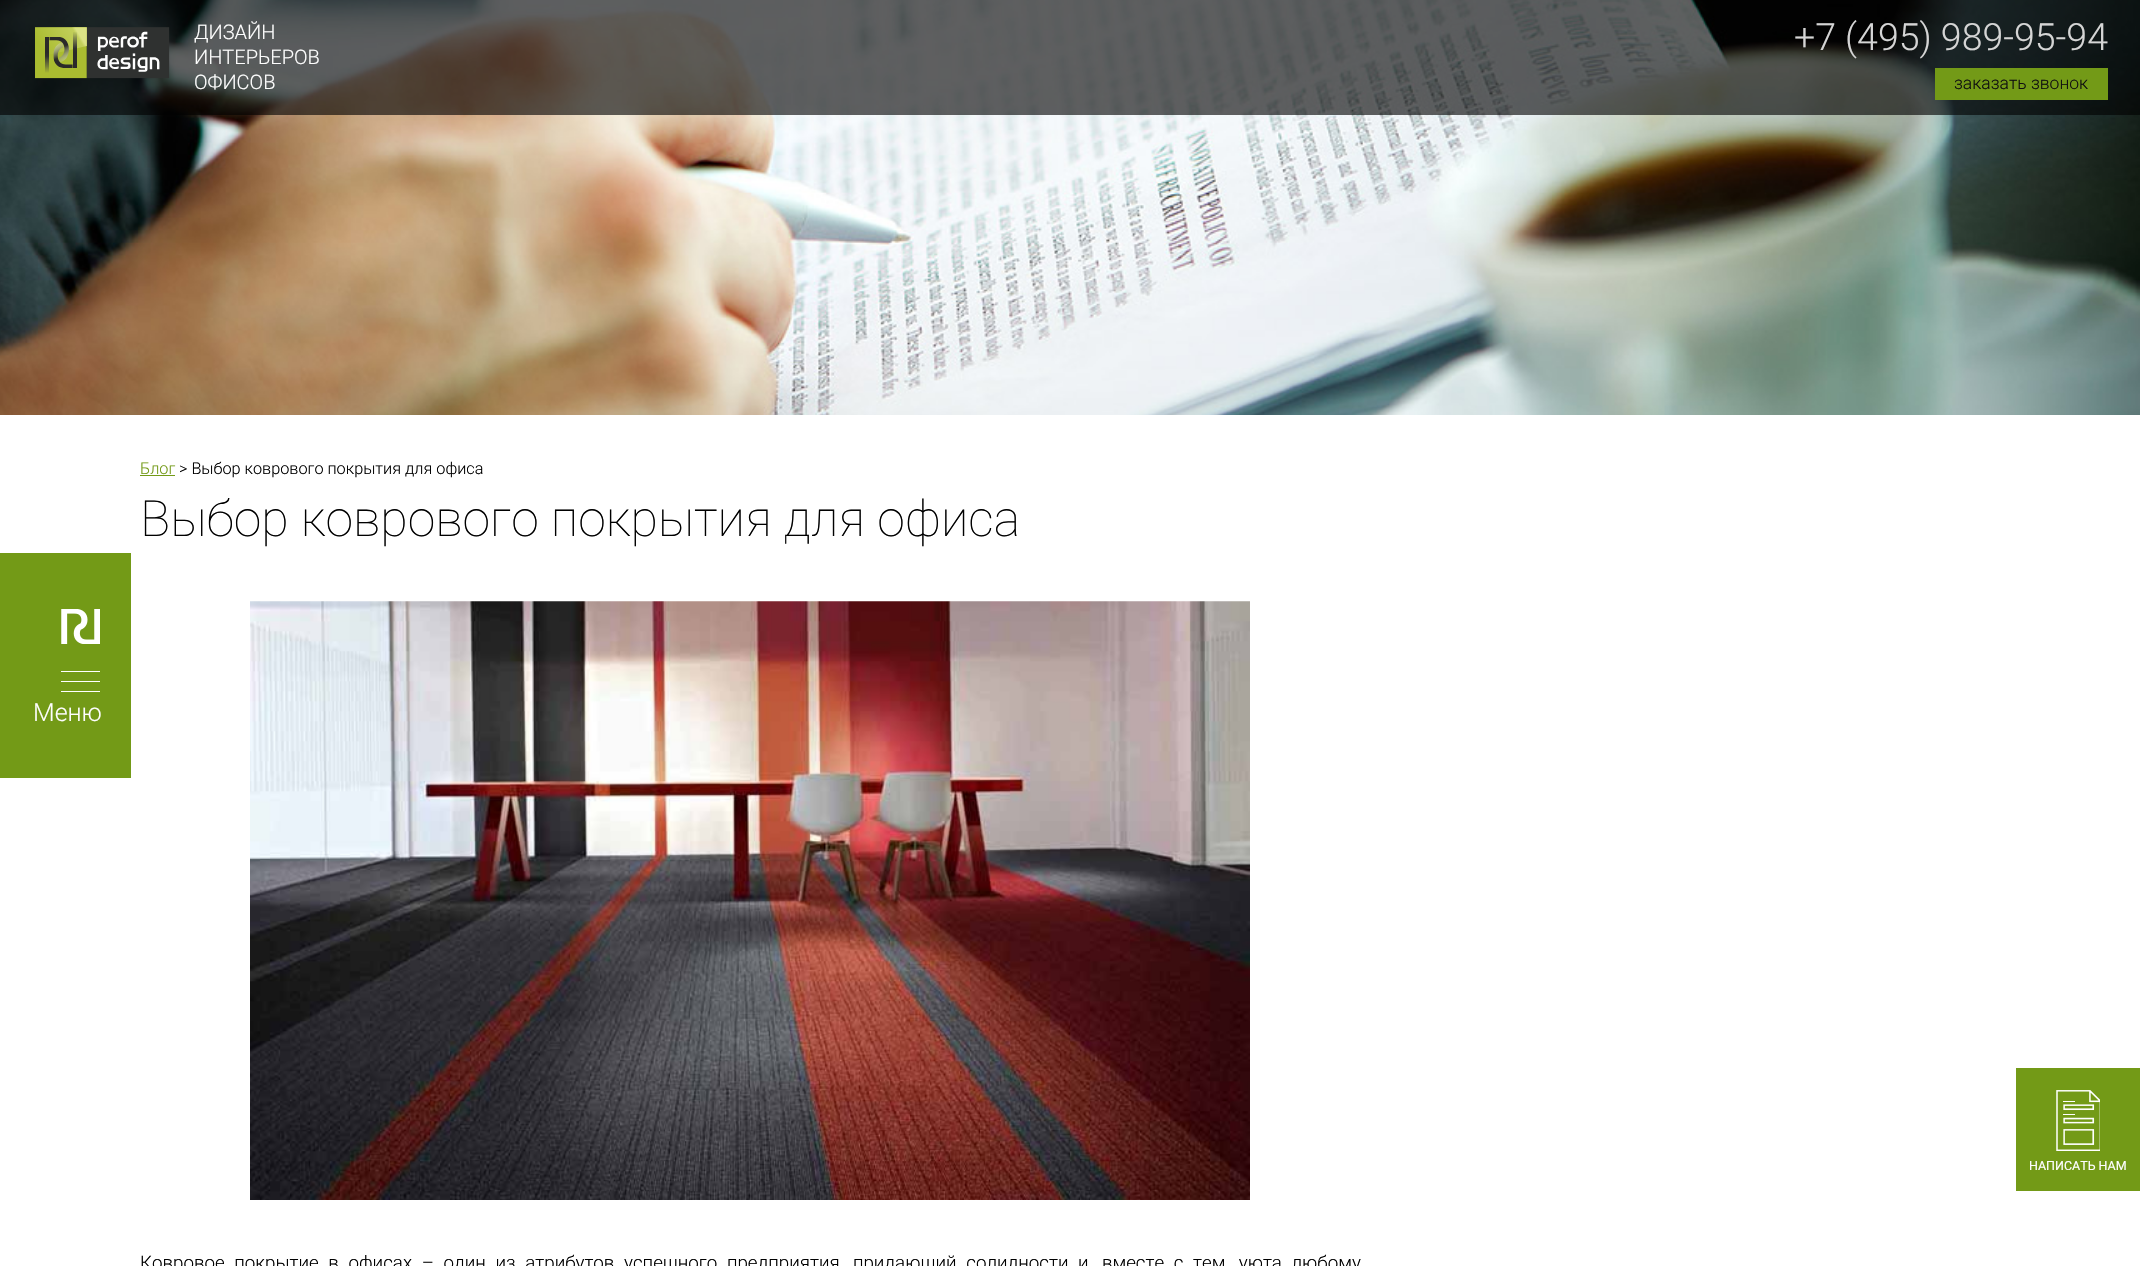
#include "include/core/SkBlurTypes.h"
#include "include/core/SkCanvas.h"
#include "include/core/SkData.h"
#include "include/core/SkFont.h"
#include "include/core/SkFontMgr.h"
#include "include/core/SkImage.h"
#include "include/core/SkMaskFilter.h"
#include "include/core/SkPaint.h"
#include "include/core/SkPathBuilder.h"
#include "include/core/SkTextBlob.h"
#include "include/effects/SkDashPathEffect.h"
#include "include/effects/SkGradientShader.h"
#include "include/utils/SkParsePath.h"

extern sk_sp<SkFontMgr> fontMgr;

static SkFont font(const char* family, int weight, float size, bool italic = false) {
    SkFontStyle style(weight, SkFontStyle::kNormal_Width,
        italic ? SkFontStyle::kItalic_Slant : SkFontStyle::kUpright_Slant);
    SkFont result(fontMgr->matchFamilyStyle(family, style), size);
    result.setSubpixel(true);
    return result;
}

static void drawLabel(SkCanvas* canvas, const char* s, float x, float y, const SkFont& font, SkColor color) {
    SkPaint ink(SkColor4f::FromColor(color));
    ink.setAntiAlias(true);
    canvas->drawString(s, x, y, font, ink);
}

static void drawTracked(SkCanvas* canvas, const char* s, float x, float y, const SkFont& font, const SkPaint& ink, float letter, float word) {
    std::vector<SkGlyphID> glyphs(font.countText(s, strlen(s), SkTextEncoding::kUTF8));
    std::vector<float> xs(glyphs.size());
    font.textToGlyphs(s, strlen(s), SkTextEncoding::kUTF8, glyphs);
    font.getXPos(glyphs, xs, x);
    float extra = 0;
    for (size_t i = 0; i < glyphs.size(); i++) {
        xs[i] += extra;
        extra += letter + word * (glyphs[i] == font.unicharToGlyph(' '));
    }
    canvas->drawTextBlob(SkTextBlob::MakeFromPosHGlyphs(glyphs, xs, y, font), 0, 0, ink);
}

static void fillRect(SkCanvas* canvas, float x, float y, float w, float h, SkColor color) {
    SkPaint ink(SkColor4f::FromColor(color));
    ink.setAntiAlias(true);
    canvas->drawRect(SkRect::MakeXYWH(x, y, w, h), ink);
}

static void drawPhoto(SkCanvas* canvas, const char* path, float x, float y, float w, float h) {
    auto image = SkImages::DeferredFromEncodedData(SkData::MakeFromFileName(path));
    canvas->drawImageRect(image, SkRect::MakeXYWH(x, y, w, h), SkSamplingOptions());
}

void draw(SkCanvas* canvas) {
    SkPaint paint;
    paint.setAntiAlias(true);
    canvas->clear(0xFFFFFFFF);
    drawPhoto(canvas, "assets/img1.png", 0, 0, 2140, 415);
    fillRect(canvas, 0, 0, 2140, 115, 0x9E000000);
    drawPhoto(canvas, "assets/img2.png", 35, 27, 135, 52);
    SkFont font1 = font("Roboto", 300, 20);
    drawLabel(canvas, "ДИЗАЙН", 194, 39, font1, 0xFFFEFEFE);
    drawLabel(canvas, "ИНТЕРЬЕРОВ", 194, 64, font1, 0xFFFEFEFE);
    drawLabel(canvas, "ОФИСОВ", 194, 89, font1, 0xFFFEFEFE);
    SkFont font2 = font("Roboto", 300, 37.5f);
    drawLabel(canvas, "+7 (495) 989-95-94", 1794, 50, font2, 0xFFD5D5D5);
    fillRect(canvas, 1935, 68, 173, 32, 0xFF739A17);
    SkFont font3 = font("Roboto", 300, 17.5f);
    drawLabel(canvas, "заказать звонок", 1954, 89, font3, 0xFF0F0F0F);
    fillRect(canvas, 0, 553, 131, 225, 0xFF739A17);
    drawPhoto(canvas, "assets/img3.png", 61, 609, 39, 35);
    fillRect(canvas, 61, 671, 39, 1, 0xFFFFFFFF);
    fillRect(canvas, 61, 681, 39, 1, 0xFFFFFFFF);
    fillRect(canvas, 61, 691, 39, 1, 0xFFFFFFFF);
    SkFont font4 = font("Roboto", 300, 25);
    drawLabel(canvas, "Меню", 33, 721, font4, 0xFFFEFEFE);
    SkFont font5 = font("Roboto", 300, 16.25f);
    drawLabel(canvas, "Блог", 140, 474, font5, 0xFF739A17);
    fillRect(canvas, 140, 475, 35, 1, 0xFF739A17);
    drawLabel(canvas, "> Выбор коврового покрытия для офиса", 179, 474, font5, 0xFF000000);
    SkFont font6 = font("Roboto", 100, 50);
    drawLabel(canvas, "Выбор коврового покрытия для офиса", 140, 536, font6, 0xFF000000);
    drawPhoto(canvas, "assets/img4.png", 250, 601, 1000, 599);
    SkFont font7 = font("Roboto", 300, 18.75f);
    paint.setColor(0xFF000000);
    drawTracked(canvas, "Ковровое покрытие в офисах – один из атрибутов успешного предприятия, придающий солидности и, вместе с тем, уюта любому", 140, 1269, font7, paint, 0, 5.1f);
    fillRect(canvas, 2016, 1068, 124, 123, 0xFF739A17);
    drawPhoto(canvas, "assets/img5.png", 2056, 1090, 44, 61);
    SkFont font8 = font("Roboto", 400, 12.5f);
    drawLabel(canvas, "НАПИСАТЬ НАМ", 2029, 1170, font8, 0xFFFEFEFE);
}
